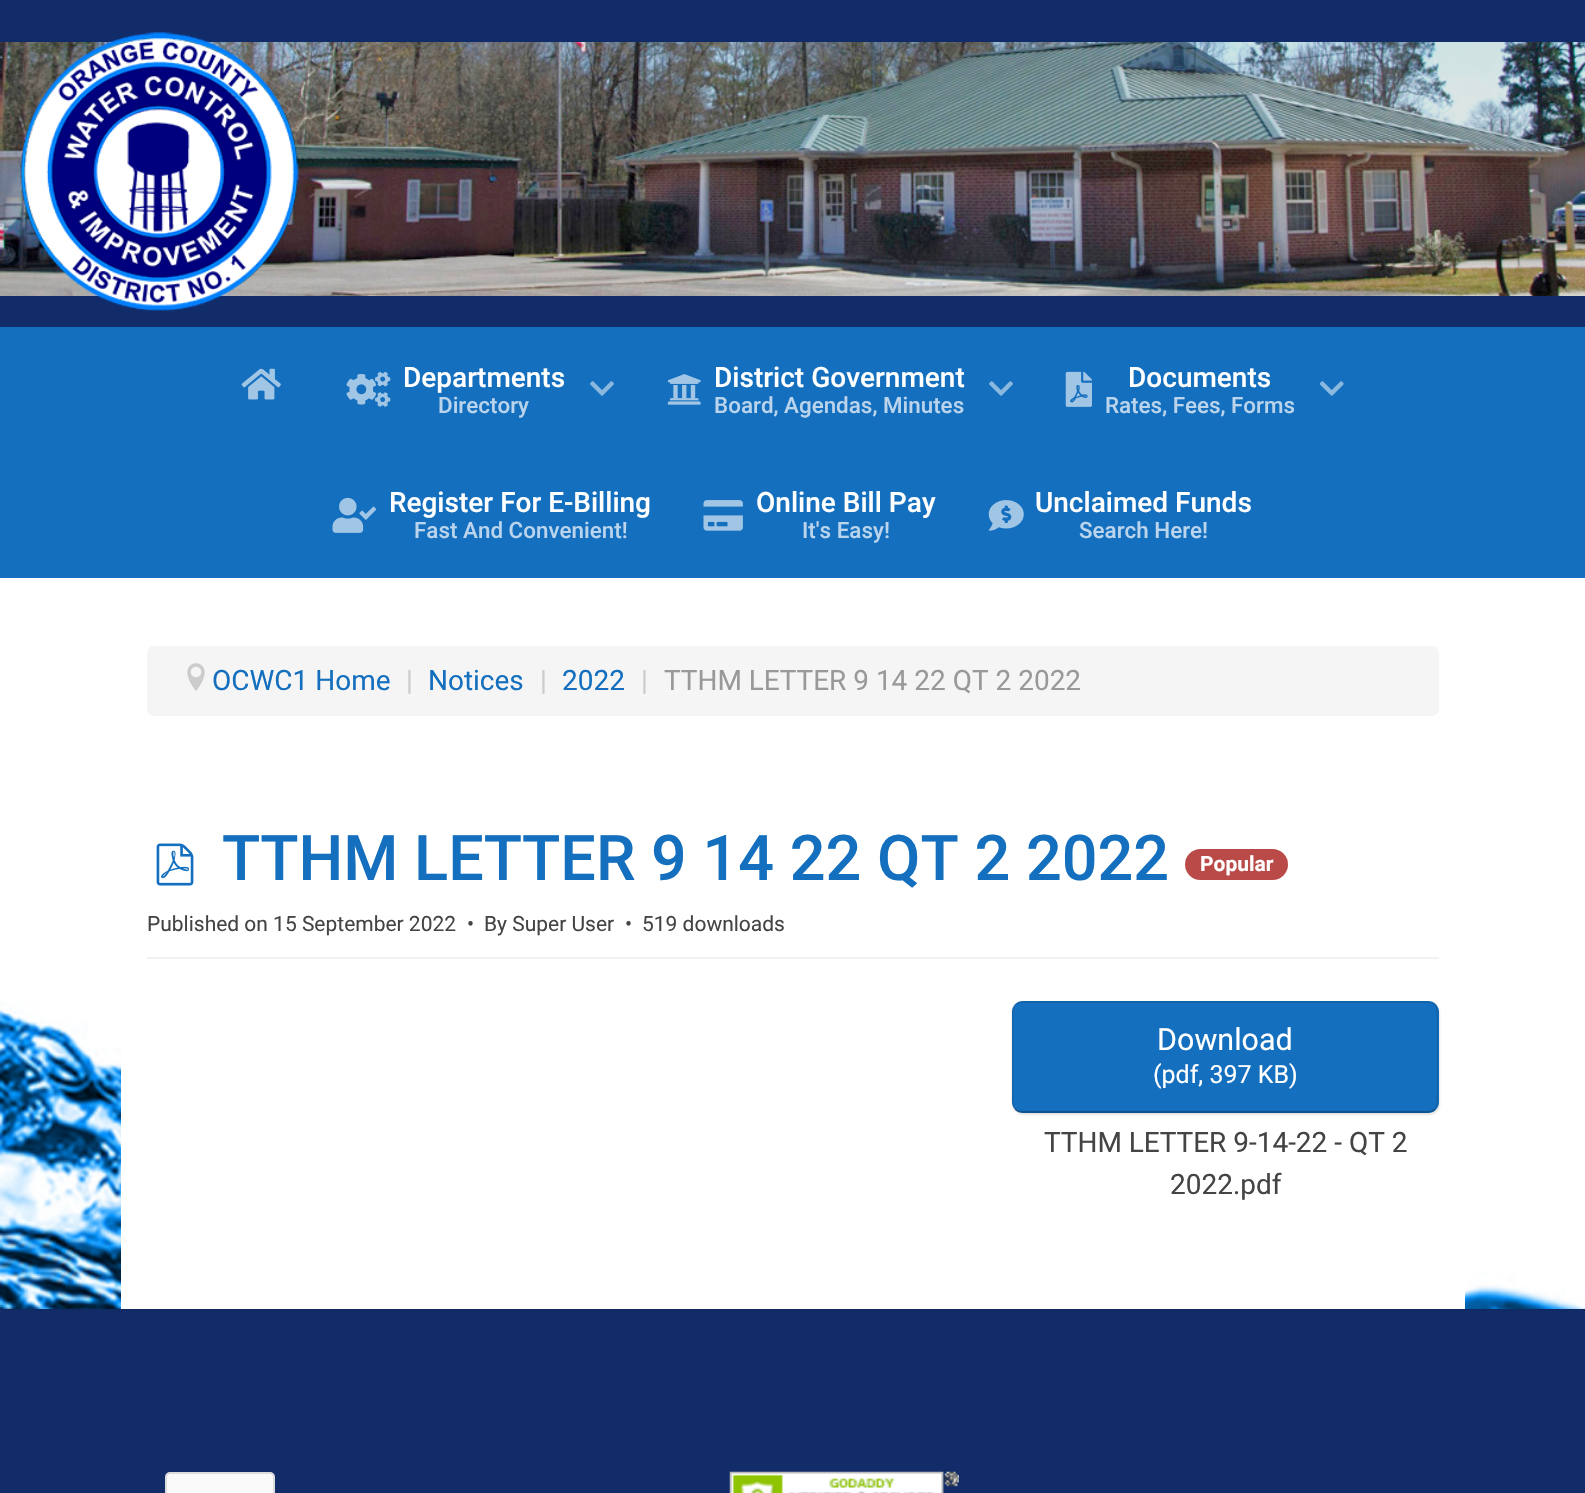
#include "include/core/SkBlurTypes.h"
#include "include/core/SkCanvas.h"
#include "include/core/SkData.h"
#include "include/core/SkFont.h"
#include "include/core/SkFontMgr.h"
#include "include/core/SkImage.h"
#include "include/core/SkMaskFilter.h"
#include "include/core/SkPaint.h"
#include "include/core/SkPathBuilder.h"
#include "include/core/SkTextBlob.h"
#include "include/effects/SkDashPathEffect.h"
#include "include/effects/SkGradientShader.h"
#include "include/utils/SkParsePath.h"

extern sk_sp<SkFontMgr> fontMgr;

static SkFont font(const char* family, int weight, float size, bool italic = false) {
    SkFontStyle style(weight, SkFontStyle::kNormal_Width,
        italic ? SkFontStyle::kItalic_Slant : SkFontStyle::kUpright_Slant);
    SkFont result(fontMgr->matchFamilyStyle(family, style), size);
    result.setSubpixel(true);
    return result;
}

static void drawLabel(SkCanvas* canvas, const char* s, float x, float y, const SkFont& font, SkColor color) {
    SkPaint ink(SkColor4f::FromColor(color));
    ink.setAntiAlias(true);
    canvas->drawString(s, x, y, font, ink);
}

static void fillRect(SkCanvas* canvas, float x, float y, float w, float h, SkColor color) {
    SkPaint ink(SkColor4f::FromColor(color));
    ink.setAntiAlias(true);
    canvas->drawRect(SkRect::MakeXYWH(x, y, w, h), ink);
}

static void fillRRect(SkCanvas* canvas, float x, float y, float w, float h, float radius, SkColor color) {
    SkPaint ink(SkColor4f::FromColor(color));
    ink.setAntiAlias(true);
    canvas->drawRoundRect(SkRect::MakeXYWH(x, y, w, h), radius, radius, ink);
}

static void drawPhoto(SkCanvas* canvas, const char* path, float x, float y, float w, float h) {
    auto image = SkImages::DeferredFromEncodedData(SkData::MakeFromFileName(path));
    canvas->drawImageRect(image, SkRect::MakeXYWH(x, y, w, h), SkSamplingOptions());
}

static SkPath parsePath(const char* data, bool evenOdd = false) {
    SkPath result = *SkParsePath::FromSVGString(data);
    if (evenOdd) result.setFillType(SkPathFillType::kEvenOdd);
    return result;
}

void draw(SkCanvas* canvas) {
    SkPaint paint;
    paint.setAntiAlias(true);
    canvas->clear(0xFFFFFFFF);
    drawPhoto(canvas, "assets/img1.png", 0, 1001, 1585, 308);
    fillRect(canvas, 0, 0, 1585, 327, 0xFF122C69);
    drawPhoto(canvas, "assets/img2.png", 0, 42, 1585, 254);
    drawPhoto(canvas, "assets/img3.png", 20, 32, 279, 279);
    fillRect(canvas, 0, 327, 1585, 251, 0xFF146FBE);
    drawPhoto(canvas, "assets/img4.png", 241, 368, 40, 32);
    drawPhoto(canvas, "assets/img5.png", 346, 371, 45, 36);
    SkFont font1 = font("Roboto", 500, 28);
    drawLabel(canvas, "Departments", 403, 387, font1, 0xFFFFFFFF);
    SkFont font2 = font("Roboto", 500, 22.4f);
    drawLabel(canvas, "Directory", 438, 413, font2, 0xFFB9D4EC);
    drawPhoto(canvas, "assets/img6.png", 590, 381, 24, 15);
    drawPhoto(canvas, "assets/img7.png", 667, 374, 34, 31);
    drawLabel(canvas, "District Government", 714, 387, font1, 0xFFFFFFFF);
    drawLabel(canvas, "Board, Agendas, Minutes", 714, 413, font2, 0xFFB9D4EC);
    drawPhoto(canvas, "assets/img6.png", 989, 381, 24, 15);
    drawPhoto(canvas, "assets/img8.png", 1065, 371, 27, 36);
    drawLabel(canvas, "Documents", 1128, 387, font1, 0xFFFFFFFF);
    drawLabel(canvas, "Rates, Fees, Forms", 1105, 413, font2, 0xFFB9D4EC);
    drawPhoto(canvas, "assets/img9.png", 1319, 381, 25, 15);
    drawPhoto(canvas, "assets/img10.png", 332, 497, 45, 36);
    drawLabel(canvas, "Register For E-Billing", 389, 512, font1, 0xFFFFFFFF);
    drawLabel(canvas, "Fast And Convenient!", 414, 538, font2, 0xFFB9D4EC);
    drawPhoto(canvas, "assets/img11.png", 703, 500, 40, 31);
    drawLabel(canvas, "Online Bill Pay", 756, 512, font1, 0xFFFFFFFF);
    drawLabel(canvas, "It's Easy!", 802, 538, font2, 0xFFB9D4EC);
    drawPhoto(canvas, "assets/img12.png", 988, 500, 36, 31);
    drawLabel(canvas, "Unclaimed Funds", 1035, 512, font1, 0xFFFFFFFF);
    drawLabel(canvas, "Search Here!", 1079, 538, font2, 0xFFB9D4EC);
    fillRect(canvas, 121, 1047, 1344, 262, 0xFFFFFFFF);
    fillRRect(canvas, 147, 646, 1292, 70, 7, 0xFFF5F5F5);
    drawPhoto(canvas, "assets/img13.png", 187, 663, 18, 28);
    SkFont font3 = font("Roboto", 400, 28);
    drawLabel(canvas, "OCWC1 Home", 212, 690, font3, 0xFF146FBE);
    drawLabel(canvas, "|", 406, 690, font3, 0xFFCCCCCC);
    drawLabel(canvas, "Notices", 428, 690, font3, 0xFF146FBE);
    drawLabel(canvas, "|", 540, 690, font3, 0xFFCCCCCC);
    drawLabel(canvas, "2022", 562, 690, font3, 0xFF146FBE);
    drawLabel(canvas, "|", 641, 690, font3, 0xFFCCCCCC);
    drawLabel(canvas, "TTHM LETTER 9 14 22 QT 2 2022", 664, 690, font3, 0xFF999999);
    drawPhoto(canvas, "assets/img14.png", 156, 843, 38, 43);
    SkFont font4 = font("Roboto", 500, 63);
    drawLabel(canvas, "TTHM LETTER 9 14 22 QT 2 2022", 222, 880, font4, 0xFF146FBE);
    fillRRect(canvas, 1185, 849, 103, 31, 15.5f, 0xFFB94A48);
    SkFont font5 = font("Roboto", 700, 21);
    drawLabel(canvas, "Popular", 1200, 871, font5, 0xFFFFFFFF);
    fillRect(canvas, 147, 957, 1292, 2, 0xFFF2F2F2);
    SkFont font6 = font("Roboto", 400, 21);
    drawLabel(canvas, "Published on 15 September 2022", 147, 931, font6, 0xFF444444);
    drawLabel(canvas, "•", 467, 931, font6, 0xFF444444);
    drawLabel(canvas, "By Super User", 484, 931, font6, 0xFF444444);
    drawLabel(canvas, "•", 625, 931, font6, 0xFF444444);
    drawLabel(canvas, "519 downloads", 642, 931, font6, 0xFF444444);
    paint.setColor(0x1A000000);
    paint.setMaskFilter(SkMaskFilter::MakeBlur(kNormal_SkBlurStyle, 1));
    canvas->drawRoundRect(SkRect::MakeXYWH(1013, 1003, 427, 112), 11, 11, paint);
    paint.setMaskFilter(nullptr);
    fillRRect(canvas, 1012, 1001, 427, 112, 11, 0xFF146FBE);
    paint.setStroke(true);
    paint.setStrokeWidth(1.8f);
    paint.setColor(0x40000000);
    canvas->drawPath(parsePath("M1435 1109.5C1433 1111 1430.5 1112 1428 1112H1022C1019.5 1112 1017 1111 1015 1109.5"), paint);
    paint.setColor(0x1A000000);
    canvas->drawPath(parsePath("M1015 1109.5C1013.5 1107.5 1012.5 1105 1012.5 1102.5V1011.5C1012.5 1009 1013.5 1006.5 1015 1004.5C1017 1003 1019.5 1002 1022 1002H1428C1430.5 1002 1433 1003 1435 1004.5C1436.5 1006.5 1437.5 1009 1437.5 1011.5V1102.5C1437.5 1105 1436.5 1107.5 1435 1109.5"), paint);
    SkFont font7 = font("Roboto", 400, 30.5f);
    drawLabel(canvas, "Download", 1157, 1050, font7, 0xFFFFFFFF);
    SkFont font8 = font("Roboto", 400, 25);
    drawLabel(canvas, "(pdf, 397 KB)", 1153, 1083, font8, 0xFFFFFFFF);
    drawLabel(canvas, "TTHM LETTER 9-14-22 - QT 2", 1044, 1152, font3, 0xFF444444);
    drawLabel(canvas, "2022.pdf", 1170, 1194, font3, 0xFF444444);
    fillRect(canvas, 0, 1311, 1585, 182, 0xFF122C69);
    fillRect(canvas, 0, 1309, 1585, 2, 0xFF112A64);
    paint.setStroke(false);
    paint.setColor(0xFFFAFAFA);
    canvas->drawRoundRect(SkRect::MakeXYWH(166, 1473, 108, 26), 4, 4, paint);
    paint.setStroke(true);
    paint.setStrokeWidth(2);
    paint.setColor(0xFFDDDDDD);
    canvas->drawRoundRect(SkRect::MakeXYWH(166, 1473, 108, 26), 4, 4, paint);
    drawPhoto(canvas, "assets/img15.png", 729, 1471, 230, 22);
}
